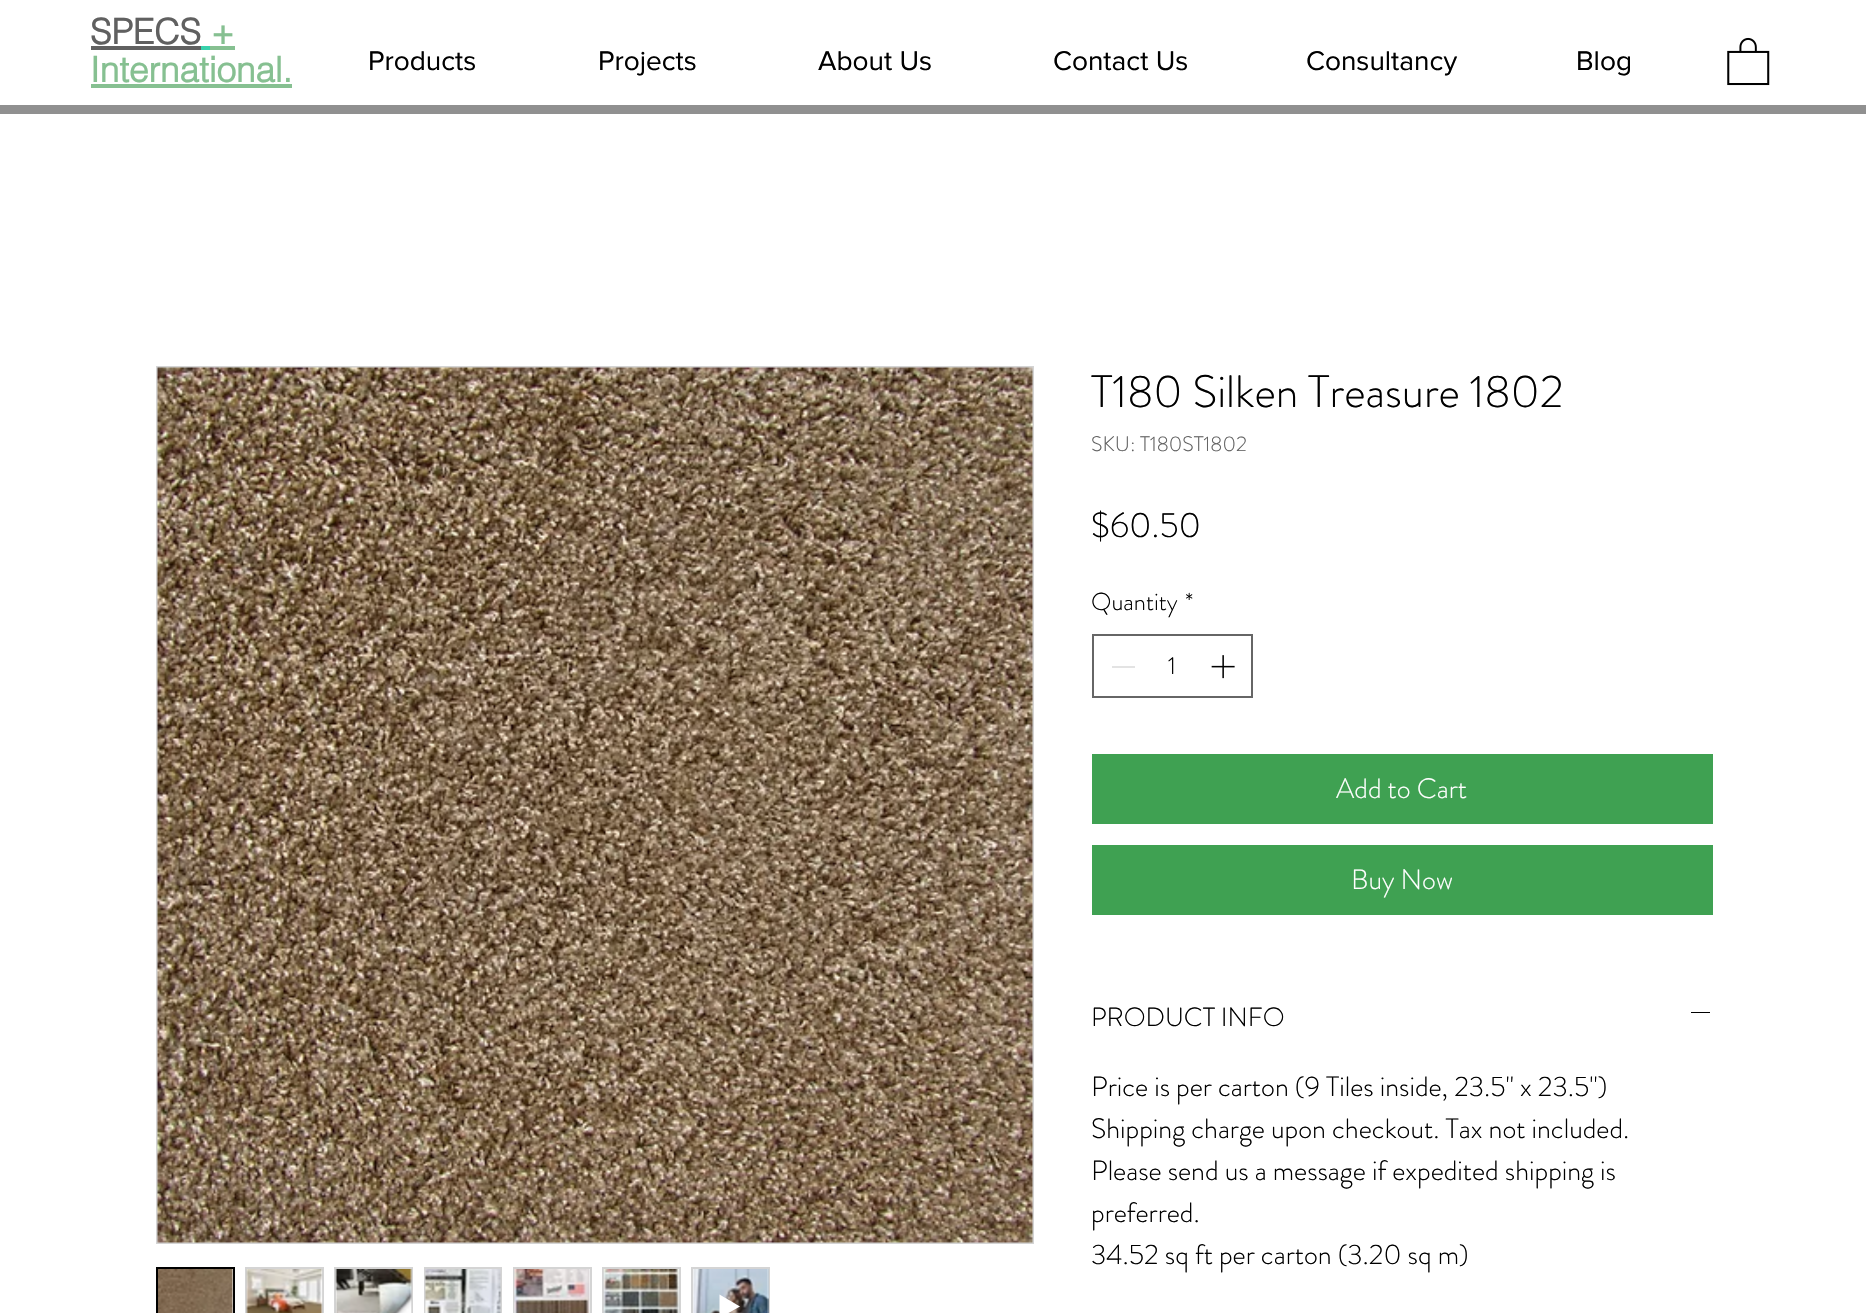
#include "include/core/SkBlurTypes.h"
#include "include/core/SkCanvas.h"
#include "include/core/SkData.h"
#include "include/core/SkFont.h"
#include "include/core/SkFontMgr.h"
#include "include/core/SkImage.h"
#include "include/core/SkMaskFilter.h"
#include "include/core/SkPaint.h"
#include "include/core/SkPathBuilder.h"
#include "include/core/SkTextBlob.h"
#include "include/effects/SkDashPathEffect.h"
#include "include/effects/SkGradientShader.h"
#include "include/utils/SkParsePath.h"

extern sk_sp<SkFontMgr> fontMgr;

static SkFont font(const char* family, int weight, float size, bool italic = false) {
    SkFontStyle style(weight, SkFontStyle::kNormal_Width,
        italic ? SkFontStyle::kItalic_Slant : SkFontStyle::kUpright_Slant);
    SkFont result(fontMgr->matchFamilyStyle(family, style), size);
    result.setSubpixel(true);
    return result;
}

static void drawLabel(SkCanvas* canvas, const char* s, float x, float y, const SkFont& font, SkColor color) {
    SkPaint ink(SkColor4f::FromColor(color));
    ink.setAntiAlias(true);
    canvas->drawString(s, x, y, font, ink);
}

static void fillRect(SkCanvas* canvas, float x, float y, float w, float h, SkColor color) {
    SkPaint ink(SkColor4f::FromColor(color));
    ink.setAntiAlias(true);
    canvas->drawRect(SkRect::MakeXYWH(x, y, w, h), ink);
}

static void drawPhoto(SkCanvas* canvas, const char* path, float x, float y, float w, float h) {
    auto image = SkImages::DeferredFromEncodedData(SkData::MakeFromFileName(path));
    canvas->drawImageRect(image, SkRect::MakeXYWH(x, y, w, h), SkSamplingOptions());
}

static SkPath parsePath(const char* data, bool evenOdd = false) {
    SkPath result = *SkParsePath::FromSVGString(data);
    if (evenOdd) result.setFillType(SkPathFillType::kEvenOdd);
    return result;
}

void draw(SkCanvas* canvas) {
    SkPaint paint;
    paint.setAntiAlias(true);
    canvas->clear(0xFFFFFFFF);
    SkFont font1 = font("helvetica", 700, 35);
    drawLabel(canvas, "SPECS", 90, 44, font1, 0xFF606060);
    fillRect(canvas, 91, 46, 110, 4, 0xFF606060);
    drawLabel(canvas, "+", 211, 44, font1, 0xFF86C091);
    fillRect(canvas, 201, 46, 9, 4, 0xFF38D1AB);
    fillRect(canvas, 210, 46, 25, 4, 0xFF86C091);
    drawLabel(canvas, "International.", 90, 82, font1, 0xFF86C091);
    fillRect(canvas, 91, 84, 201, 4, 0xFF86C091);
    SkFont font2 = font("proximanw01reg", 400, 28);
    drawLabel(canvas, "Products", 368, 70, font2, 0xFF000000);
    drawLabel(canvas, "Projects", 598, 70, font2, 0xFF000000);
    drawLabel(canvas, "About Us", 818, 70, font2, 0xFF000000);
    drawLabel(canvas, "Contact Us", 1053, 70, font2, 0xFF000000);
    drawLabel(canvas, "Consultancy", 1306, 70, font2, 0xFF000000);
    drawLabel(canvas, "Blog", 1576, 70, font2, 0xFF000000);
    drawPhoto(canvas, "assets/img1.png", 1727, 37, 43, 49);
    fillRect(canvas, 0, 105, 1866, 9, 0xFF909090);
    paint.setStroke(true);
    paint.setStrokeWidth(2);
    paint.setColor(0xFFD4D4D4);
    canvas->drawRect(SkRect::MakeXYWH(157, 367, 876, 876), paint);
    drawPhoto(canvas, "assets/img2.png", 157, 367, 876, 876);
    paint.setColor(0xFF000000);
    canvas->drawRect(SkRect::MakeXYWH(157, 1268, 77, 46), paint);
    drawPhoto(canvas, "assets/img3.png", 158, 1269, 76, 44);
    paint.setColor(0xFFD4D4D4);
    canvas->drawRect(SkRect::MakeXYWH(246, 1268, 77, 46), paint);
    drawPhoto(canvas, "assets/img4.png", 246, 1269, 77, 44);
    canvas->drawRect(SkRect::MakeXYWH(335, 1268, 77, 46), paint);
    drawPhoto(canvas, "assets/img5.png", 335, 1269, 77, 44);
    canvas->drawRect(SkRect::MakeXYWH(425, 1268, 76, 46), paint);
    drawPhoto(canvas, "assets/img6.png", 424, 1269, 77, 44);
    canvas->drawRect(SkRect::MakeXYWH(514, 1268, 77, 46), paint);
    drawPhoto(canvas, "assets/img7.png", 514, 1269, 76, 44);
    canvas->drawRect(SkRect::MakeXYWH(603, 1268, 77, 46), paint);
    drawPhoto(canvas, "assets/img8.png", 603, 1269, 77, 44);
    canvas->drawRect(SkRect::MakeXYWH(692, 1268, 77, 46), paint);
    drawPhoto(canvas, "assets/img9.png", 693, 1269, 76, 44);
    paint.setStroke(false);
    paint.setColor(0xFFFFFFFF);
    canvas->drawPath(parsePath("M719.5 1294.5V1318L740 1306.5Z"), paint);
    SkFont font3 = font("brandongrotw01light", 300, 45.5f);
    drawLabel(canvas, "T180 Silken Treasure 1802", 1091, 407, font3, 0xFF000000);
    SkFont font4 = font("brandongrotw01light", 300, 21);
    drawLabel(canvas, "SKU: T180ST1802", 1091, 451, font4, 0xFF606060);
    SkFont font5 = font("brandongrotw01light", 300, 35);
    drawLabel(canvas, "$60.50", 1091, 537, font5, 0xFF000000);
    SkFont font6 = font("brandongrotw01light", 300, 24.5f);
    drawLabel(canvas, "Quantity", 1091, 610, font6, 0xFF000000);
    drawLabel(canvas, "*", 1185, 610, font6, 0xFF000000);
    paint.setStroke(true);
    paint.setColor(0xFF666666);
    canvas->drawRect(SkRect::MakeXYWH(1093, 635, 159, 62), paint);
    fillRect(canvas, 1112, 666, 23, 2, 0xFFE3E3E3);
    drawLabel(canvas, "1", 1168, 674, font6, 0xFF000000);
    drawPhoto(canvas, "assets/img10.png", 1211, 655, 24, 24);
    fillRect(canvas, 1092, 754, 621, 70, 0xFF3FA152);
    SkFont font7 = font("brandongrotw01light", 300, 28);
    drawLabel(canvas, "Add to Cart", 1336, 798, font7, 0xFFFFFFFF);
    fillRect(canvas, 1092, 845, 621, 70, 0xFF3FA152);
    drawLabel(canvas, "Buy Now", 1351, 889, font7, 0xFFFFFFFF);
    SkFont font8 = font("brandongrotw01light", 300, 26.25f);
    drawLabel(canvas, "PRODUCT INFO", 1091, 1026, font8, 0xFF000000);
    fillRect(canvas, 1691, 1012, 19, 1, 0xFF000000);
    drawLabel(canvas, "Price is per carton (9 Tiles inside, 23.5\" x 23.5\")", 1091, 1096, font7, 0xFF000000);
    drawLabel(canvas, "Shipping charge upon checkout. Tax not included.", 1091, 1138, font7, 0xFF000000);
    drawLabel(canvas, "Please send us a message if expedited shipping is", 1091, 1180, font7, 0xFF000000);
    drawLabel(canvas, "preferred.", 1091, 1222, font7, 0xFF000000);
    drawLabel(canvas, "34.52 sq ft per carton (3.20 sq m)", 1091, 1264, font7, 0xFF000000);
}
